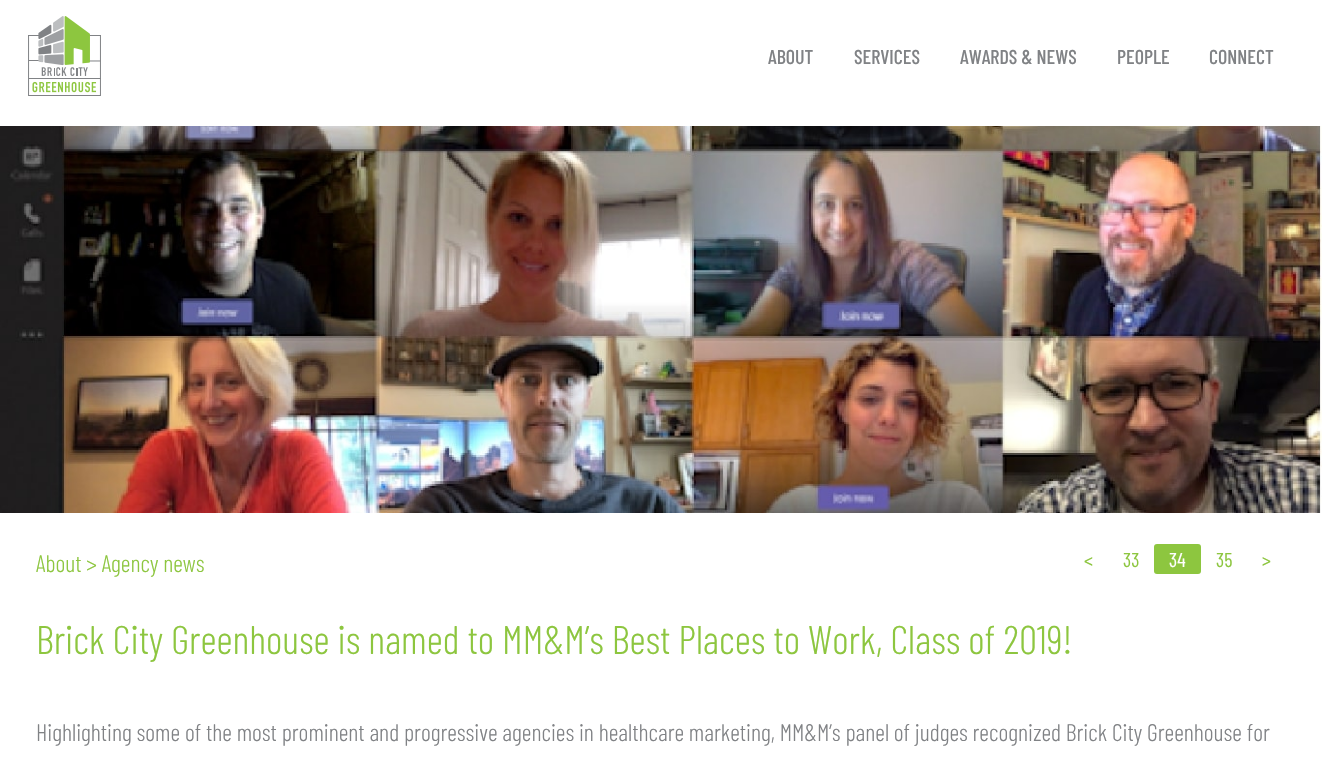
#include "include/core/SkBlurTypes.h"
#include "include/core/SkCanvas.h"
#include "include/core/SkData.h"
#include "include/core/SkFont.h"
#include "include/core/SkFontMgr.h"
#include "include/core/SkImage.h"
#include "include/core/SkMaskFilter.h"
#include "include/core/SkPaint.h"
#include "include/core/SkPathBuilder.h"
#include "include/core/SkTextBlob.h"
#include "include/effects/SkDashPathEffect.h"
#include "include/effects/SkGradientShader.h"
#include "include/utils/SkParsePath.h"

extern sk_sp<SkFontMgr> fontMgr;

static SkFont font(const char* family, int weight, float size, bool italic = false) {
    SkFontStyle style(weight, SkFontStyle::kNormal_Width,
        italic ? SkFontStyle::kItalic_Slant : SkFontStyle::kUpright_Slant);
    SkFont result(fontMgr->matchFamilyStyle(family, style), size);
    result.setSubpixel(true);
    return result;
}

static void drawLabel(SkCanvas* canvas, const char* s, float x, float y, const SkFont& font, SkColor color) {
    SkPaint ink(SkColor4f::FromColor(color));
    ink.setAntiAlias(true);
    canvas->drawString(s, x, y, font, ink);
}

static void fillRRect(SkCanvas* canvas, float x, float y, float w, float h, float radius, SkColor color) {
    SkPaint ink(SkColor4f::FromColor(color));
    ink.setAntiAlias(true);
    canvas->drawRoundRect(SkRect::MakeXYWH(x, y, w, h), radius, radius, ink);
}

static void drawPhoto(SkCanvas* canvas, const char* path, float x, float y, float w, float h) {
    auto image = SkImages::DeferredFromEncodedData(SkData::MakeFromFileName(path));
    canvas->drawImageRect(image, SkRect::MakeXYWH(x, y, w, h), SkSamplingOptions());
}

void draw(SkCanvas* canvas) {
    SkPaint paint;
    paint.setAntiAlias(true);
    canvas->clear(0xFFFFFFFF);
    drawPhoto(canvas, "assets/img1.png", 28, 16, 73, 80);
    SkFont font1 = font("Barlow Condensed", 500, 20);
    drawLabel(canvas, "ABOUT", 768, 64, font1, 0xFF808285);
    drawLabel(canvas, "SERVICES", 854, 64, font1, 0xFF808285);
    drawLabel(canvas, "AWARDS & NEWS", 960, 64, font1, 0xFF808285);
    drawLabel(canvas, "PEOPLE", 1117, 64, font1, 0xFF808285);
    drawLabel(canvas, "CONNECT", 1209, 64, font1, 0xFF808285);
    drawPhoto(canvas, "assets/img2.png", 0, 126, 1322, 387);
    SkFont font2 = font("Barlow Condensed", 300, 24);
    drawLabel(canvas, "About > Agency news", 36, 572, font2, 0xFF8DC63F);
    SkFont font3 = font("Barlow Condensed", 400, 20);
    drawLabel(canvas, "<", 1084, 567, font3, 0xFF8DC63F);
    drawLabel(canvas, "33", 1123, 567, font3, 0xFF8DC63F);
    fillRRect(canvas, 1154, 544, 47, 30, 3, 0xFF8DC63F);
    drawLabel(canvas, "34", 1169, 567, font3, 0xFFFFFFFF);
    drawLabel(canvas, "35", 1216, 567, font3, 0xFF8DC63F);
    drawLabel(canvas, ">", 1262, 567, font3, 0xFF8DC63F);
    SkFont font4 = font("Barlow Condensed", 300, 40);
    drawLabel(canvas, "Brick City Greenhouse is named to MM&M’s Best Places to Work, Class of 2019!", 36, 654, font4, 0xFF8DC63F);
    drawLabel(canvas, "Highlighting some of the most prominent and progressive agencies in healthcare marketing, MM&M’s panel of judges recognized Brick City Greenhouse for", 36, 741, font2, 0xFF808285);
}
